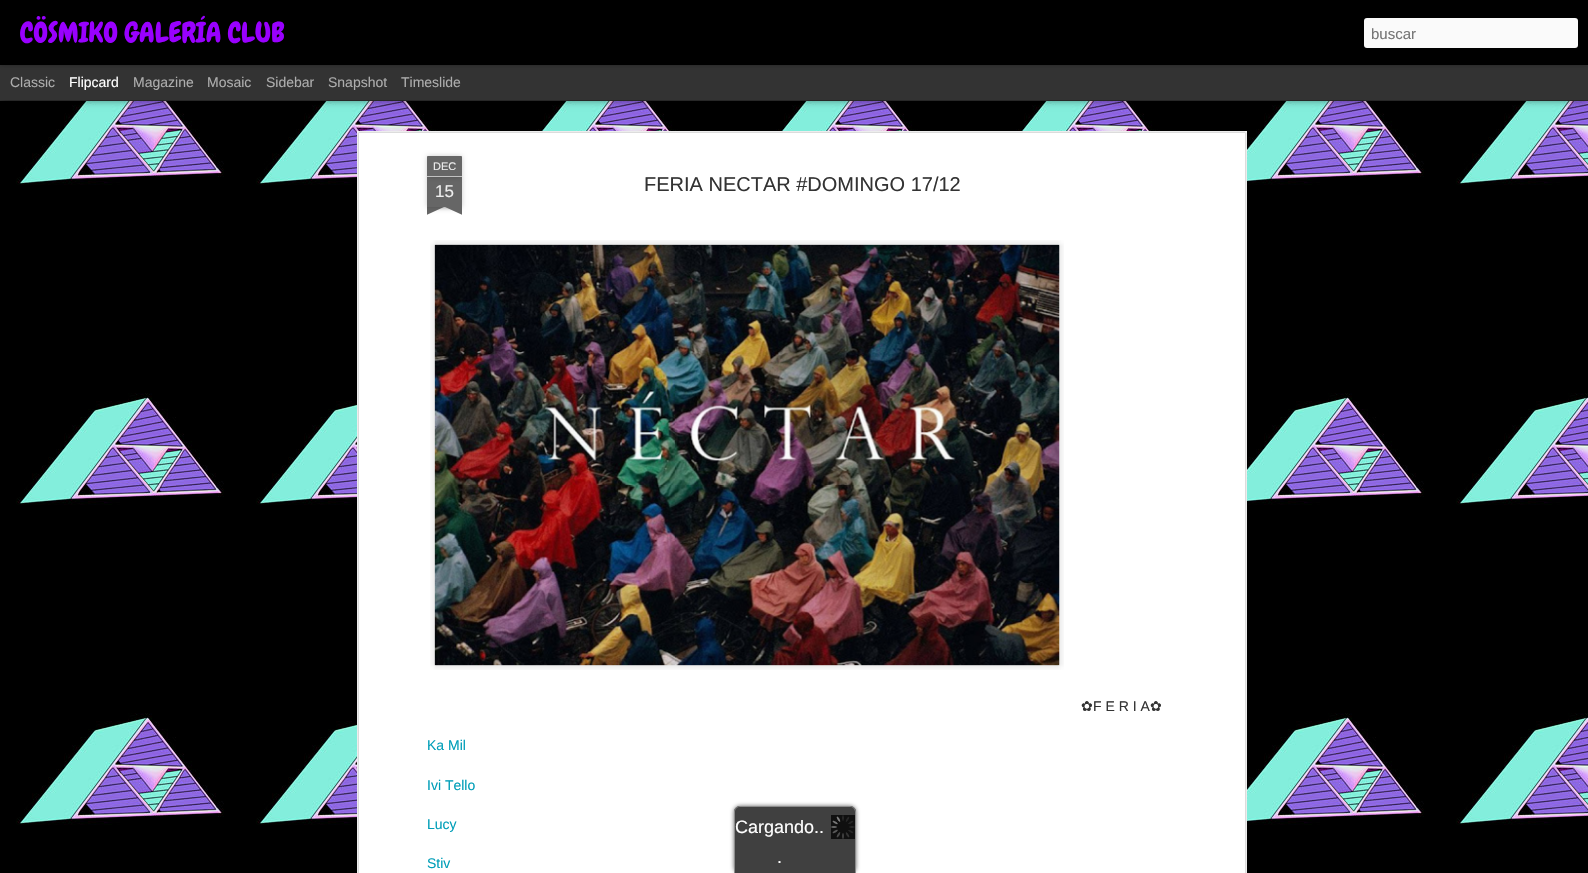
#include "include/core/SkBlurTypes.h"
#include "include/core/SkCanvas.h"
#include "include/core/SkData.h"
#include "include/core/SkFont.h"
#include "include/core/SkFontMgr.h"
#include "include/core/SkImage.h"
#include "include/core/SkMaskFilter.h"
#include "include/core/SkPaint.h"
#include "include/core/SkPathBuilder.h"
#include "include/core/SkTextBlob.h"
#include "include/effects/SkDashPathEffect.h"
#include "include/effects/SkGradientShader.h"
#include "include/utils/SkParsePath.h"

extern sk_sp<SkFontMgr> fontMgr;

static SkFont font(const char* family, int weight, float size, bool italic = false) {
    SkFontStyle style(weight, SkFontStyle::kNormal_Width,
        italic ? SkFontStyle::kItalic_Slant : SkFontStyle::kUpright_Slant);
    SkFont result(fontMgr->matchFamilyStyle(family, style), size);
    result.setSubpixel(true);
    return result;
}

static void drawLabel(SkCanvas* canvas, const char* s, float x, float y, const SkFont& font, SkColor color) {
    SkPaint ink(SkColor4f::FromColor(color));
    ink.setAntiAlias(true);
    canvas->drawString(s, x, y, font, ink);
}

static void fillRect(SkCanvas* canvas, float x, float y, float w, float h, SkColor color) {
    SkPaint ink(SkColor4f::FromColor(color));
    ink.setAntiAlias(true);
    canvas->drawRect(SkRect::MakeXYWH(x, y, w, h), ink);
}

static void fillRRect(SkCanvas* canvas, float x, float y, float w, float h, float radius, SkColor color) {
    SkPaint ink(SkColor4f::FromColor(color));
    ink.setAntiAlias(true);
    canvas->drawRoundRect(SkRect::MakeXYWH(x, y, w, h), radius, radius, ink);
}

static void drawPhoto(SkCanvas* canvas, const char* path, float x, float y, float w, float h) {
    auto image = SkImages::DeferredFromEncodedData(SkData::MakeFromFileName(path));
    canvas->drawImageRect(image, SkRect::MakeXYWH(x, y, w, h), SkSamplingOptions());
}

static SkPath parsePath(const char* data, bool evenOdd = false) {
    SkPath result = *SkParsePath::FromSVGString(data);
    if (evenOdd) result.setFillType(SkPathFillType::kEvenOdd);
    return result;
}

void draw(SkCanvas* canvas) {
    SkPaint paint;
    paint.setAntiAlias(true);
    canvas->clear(0xFF333333);
    drawPhoto(canvas, "assets/img1.png", 0, 101, 1588, 772);
    paint.setColor(0x80000000);
    paint.setMaskFilter(SkMaskFilter::MakeBlur(kNormal_SkBlurStyle, 4));
    canvas->drawRect(SkRect::MakeXYWH(0, 65, 1588, 35), paint);
    paint.setMaskFilter(nullptr);
    fillRect(canvas, 0, 65, 1588, 35, 0xFF333333);
    paint.setColor(0x4D000000);
    paint.setMaskFilter(SkMaskFilter::MakeBlur(kNormal_SkBlurStyle, 2.5f));
    canvas->drawRect(SkRect::MakeXYWH(0, 0, 1588, 65), paint);
    paint.setMaskFilter(nullptr);
    fillRect(canvas, 0, 0, 1588, 65, 0xFF000000);
    SkFont font1 = font("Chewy", 400, 28);
    drawLabel(canvas, "CÖSMIKO GALERÍA CLUB", 20, 42, font1, 0xFF9900FF);
    fillRRect(canvas, 1364, 18, 214, 30, 3, 0xFFFAFAFA);
    SkFont font2 = font("Liberation Sans", 400, 15);
    drawLabel(canvas, "buscar", 1371, 39, font2, 0xFF757575);
    SkFont font3 = font("Liberation Sans", 400, 14);
    drawLabel(canvas, "Classic", 10, 87, font3, 0xFFADADAD);
    drawLabel(canvas, "Flipcard", 69, 87, font3, 0xFFFFFFFF);
    drawLabel(canvas, "Magazine", 133, 87, font3, 0xFFADADAD);
    drawLabel(canvas, "Mosaic", 207, 87, font3, 0xFFADADAD);
    drawLabel(canvas, "Sidebar", 266, 87, font3, 0xFFADADAD);
    drawLabel(canvas, "Snapshot", 328, 87, font3, 0xFFADADAD);
    drawLabel(canvas, "Timeslide", 401, 87, font3, 0xFFADADAD);
    fillRect(canvas, 357, 131, 890, 742, 0xFFFFFFFF);
    drawPhoto(canvas, "assets/img2.png", 357, 131, 890, 742);
    paint.setColor(0x33000000);
    paint.setMaskFilter(SkMaskFilter::MakeBlur(kNormal_SkBlurStyle, 2.5f));
    canvas->drawRect(SkRect::MakeXYWH(427, 177, 35, 30), paint);
    paint.setMaskFilter(nullptr);
    fillRect(canvas, 427, 177, 35, 30, 0xFF666666);
    paint.setMaskFilter(SkMaskFilter::MakeBlur(kNormal_SkBlurStyle, 2.5f));
    canvas->drawRoundRect(SkRect::MakeXYWH(427, 156, 35, 21), 1, 1, paint);
    paint.setMaskFilter(nullptr);
    paint.setColor(0xFF666666);
    canvas->drawPath(parsePath("M428 156H461C461.5 156 462 156.5 462 157V177H427V157C427 156.5 427.5 156 428 156Z"), paint);
    fillRect(canvas, 427, 176, 35, 1, 0xFFC2C2C2);
    SkFont font4 = font("Liberation Sans", 400, 11);
    drawLabel(canvas, "DEC", 433, 170, font4, 0xFFEEEEEE);
    SkFont font5 = font("Liberation Sans", 400, 17);
    drawLabel(canvas, "15", 435, 197, font5, 0xFFEEEEEE);
    canvas->save();
    canvas->clipRect(SkRect::MakeXYWH(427, 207, 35, 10));
    paint.setColor(0x33000000);
    paint.setMaskFilter(SkMaskFilter::MakeBlur(kNormal_SkBlurStyle, 2.5f));
    canvas->drawRect(SkRect::MakeXYWH(418, 197, 50, 10), paint);
    paint.setMaskFilter(nullptr);
    canvas->restore();
    canvas->save();
    canvas->clipRect(SkRect::MakeXYWH(427, 207, 35, 10));
    paint.setColor(0xFF666666);
    canvas->drawPath(parsePath("M418 208L464 187L468 196L422 217Z"), paint);
    canvas->restore();
    canvas->save();
    canvas->clipRect(SkRect::MakeXYWH(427, 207, 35, 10));
    paint.setColor(0x33000000);
    paint.setMaskFilter(SkMaskFilter::MakeBlur(kNormal_SkBlurStyle, 2.5f));
    canvas->drawRect(SkRect::MakeXYWH(421, 197, 50, 10), paint);
    paint.setMaskFilter(nullptr);
    canvas->restore();
    canvas->save();
    canvas->clipRect(SkRect::MakeXYWH(427, 207, 35, 10));
    paint.setColor(0xFF666666);
    canvas->drawPath(parsePath("M425 187L471 208L467 217L421 196Z"), paint);
    canvas->restore();
    SkFont font6 = font("Liberation Sans", 400, 20);
    drawLabel(canvas, "FERIA NECTAR #DOMINGO 17/12", 644, 191, font6, 0xFF333333);
    drawPhoto(canvas, "assets/img3.png", 430, 240, 634, 430);
    drawPhoto(canvas, "assets/img4.png", 434, 244, 626, 422);
    SkFont font7 = font("DejaVu Sans", 400, 14);
    drawLabel(canvas, "✿", 1081, 711, font7, 0xFF333333);
    drawLabel(canvas, "F E R I A", 1093, 711, font3, 0xFF333333);
    drawLabel(canvas, "✿", 1150, 711, font7, 0xFF333333);
    drawLabel(canvas, "Ka Mil", 427, 750, font3, 0xFF009EB8);
    drawLabel(canvas, "Ivi Tello", 427, 790, font3, 0xFF009EB8);
    drawLabel(canvas, "Lucy", 427, 829, font3, 0xFF009EB8);
    drawLabel(canvas, "Stiv", 427, 868, font3, 0xFF009EB8);
    paint.setMaskFilter(SkMaskFilter::MakeBlur(kNormal_SkBlurStyle, 2));
    canvas->drawRoundRect(SkRect::MakeXYWH(734, 806, 122, 67), 6, 6, paint);
    paint.setMaskFilter(nullptr);
    paint.setColor(0xFF404040);
    canvas->drawPath(parsePath("M740 806H850C853.5 806 856 808.5 856 812V873H734V812C734 808.5 736.5 806 740 806Z"), paint);
    paint.setColor(0xFF8C8C8C);
    canvas->drawPath(parsePath("M740 806H850C853 806 856 809 856 812V873H734V812C734 809 737 806 740 806ZM740 807H850C853 807 855 809 855 812V873H735V812C735 809 737 807 740 807Z", true), paint);
    drawPhoto(canvas, "assets/img5.png", 831, 815, 24, 24);
    SkFont font8 = font("Liberation Sans", 400, 18);
    drawLabel(canvas, "Cargando..", 735, 833, font8, 0xFFFFFFFF);
    drawLabel(canvas, ".", 777, 863, font8, 0xFFFFFFFF);
}
